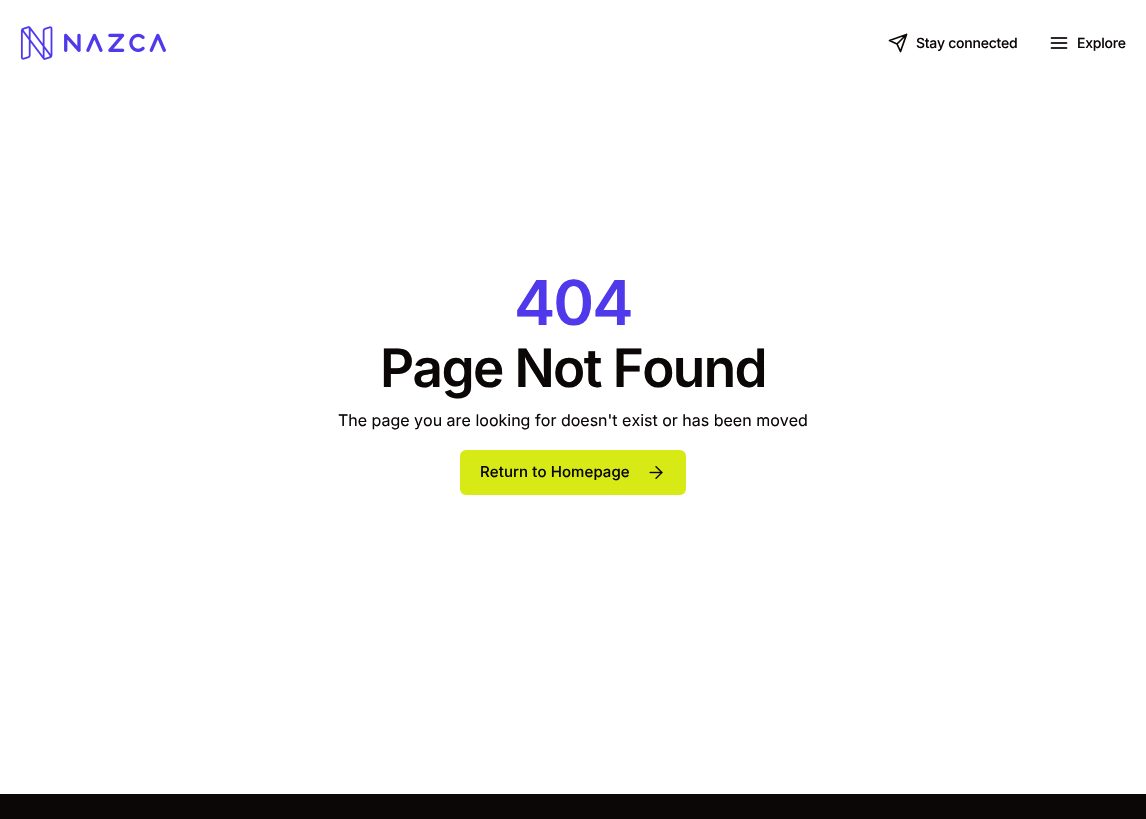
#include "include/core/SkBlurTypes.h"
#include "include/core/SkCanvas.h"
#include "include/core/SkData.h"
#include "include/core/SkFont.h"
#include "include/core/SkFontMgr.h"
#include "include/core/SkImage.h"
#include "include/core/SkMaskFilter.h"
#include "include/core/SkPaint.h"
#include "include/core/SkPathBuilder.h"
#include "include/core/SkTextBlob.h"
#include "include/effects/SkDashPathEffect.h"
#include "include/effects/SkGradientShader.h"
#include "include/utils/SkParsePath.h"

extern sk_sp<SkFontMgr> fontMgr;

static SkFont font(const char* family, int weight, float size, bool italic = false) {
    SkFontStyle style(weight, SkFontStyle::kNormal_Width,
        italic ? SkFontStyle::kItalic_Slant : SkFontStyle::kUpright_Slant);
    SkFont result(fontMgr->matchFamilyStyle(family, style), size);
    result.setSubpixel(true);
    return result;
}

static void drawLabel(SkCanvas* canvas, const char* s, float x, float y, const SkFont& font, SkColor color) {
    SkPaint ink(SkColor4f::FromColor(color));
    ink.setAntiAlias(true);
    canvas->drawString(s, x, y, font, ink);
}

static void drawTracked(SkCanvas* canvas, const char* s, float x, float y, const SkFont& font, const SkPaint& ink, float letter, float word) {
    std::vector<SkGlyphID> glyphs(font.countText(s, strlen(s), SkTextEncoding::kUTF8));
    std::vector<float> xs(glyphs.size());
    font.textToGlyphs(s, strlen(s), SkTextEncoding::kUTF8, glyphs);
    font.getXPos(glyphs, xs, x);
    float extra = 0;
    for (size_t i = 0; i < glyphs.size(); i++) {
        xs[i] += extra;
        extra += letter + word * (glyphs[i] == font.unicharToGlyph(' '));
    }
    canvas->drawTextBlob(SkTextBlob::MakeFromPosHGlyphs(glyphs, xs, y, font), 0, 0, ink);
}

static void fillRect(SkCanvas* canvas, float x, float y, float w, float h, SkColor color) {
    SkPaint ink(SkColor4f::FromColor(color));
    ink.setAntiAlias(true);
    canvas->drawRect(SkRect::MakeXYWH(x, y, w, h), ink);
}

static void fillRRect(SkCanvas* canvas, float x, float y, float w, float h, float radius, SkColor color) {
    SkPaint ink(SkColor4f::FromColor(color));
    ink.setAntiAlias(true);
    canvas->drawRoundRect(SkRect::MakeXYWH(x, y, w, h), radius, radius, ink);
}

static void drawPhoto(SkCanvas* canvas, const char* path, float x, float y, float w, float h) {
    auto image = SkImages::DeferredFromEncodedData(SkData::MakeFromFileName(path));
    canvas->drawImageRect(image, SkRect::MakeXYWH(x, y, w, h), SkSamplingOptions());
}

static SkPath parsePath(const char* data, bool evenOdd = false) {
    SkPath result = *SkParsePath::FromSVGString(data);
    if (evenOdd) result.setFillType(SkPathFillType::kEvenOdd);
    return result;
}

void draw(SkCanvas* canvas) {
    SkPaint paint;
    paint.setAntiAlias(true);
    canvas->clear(0xFF0B0706);
    fillRect(canvas, 0, 0, 1146, 794, 0xFFFFFFFF);
    drawPhoto(canvas, "assets/img1.png", 20, 26, 146, 34);
    paint.setStroke(true);
    paint.setStrokeWidth(1.7f);
    paint.setStrokeCap(SkPaint::kRound_Cap);
    paint.setStrokeJoin(SkPaint::kRound_Join);
    paint.setColor(0xFF0B0706);
    canvas->drawPath(parsePath("M906.5 34.5L897 44M906.5 34.5L900.5 51.5L897 44L889.5 40.5Z"), paint);
    SkFont font1 = font("Inter", 500, 14);
    paint.setStroke(false);
    drawTracked(canvas, "Stay connected", 916, 48, font1, paint, -0.25f, 0);
    drawPhoto(canvas, "assets/img2.png", 1050, 37, 18, 12);
    drawTracked(canvas, "Explore", 1077, 48, font1, paint, -0.25f, 0);
    SkFont font2 = font("Inter", 600, 62);
    paint.setColor(0xFF4F39EB);
    drawTracked(canvas, "404", 514, 325, font2, paint, -2, 0);
    SkFont font3 = font("Inter", 600, 53);
    paint.setColor(0xFF0B0706);
    drawTracked(canvas, "Page Not Found", 380, 387, font3, paint, -1.6f, 0);
    SkFont font4 = font("Inter", 400, 16);
    drawLabel(canvas, "The page you are looking for doesn't exist or has been moved", 338, 426, font4, 0xFF0B0706);
    fillRRect(canvas, 460, 450, 226, 45, 6, 0xFFD8EA16);
    SkFont font5 = font("Inter", 500, 15);
    drawTracked(canvas, "Return to Homepage", 480, 477, font5, paint, 0.1f, 0);
    drawPhoto(canvas, "assets/img3.png", 649, 466, 14, 13);
}
